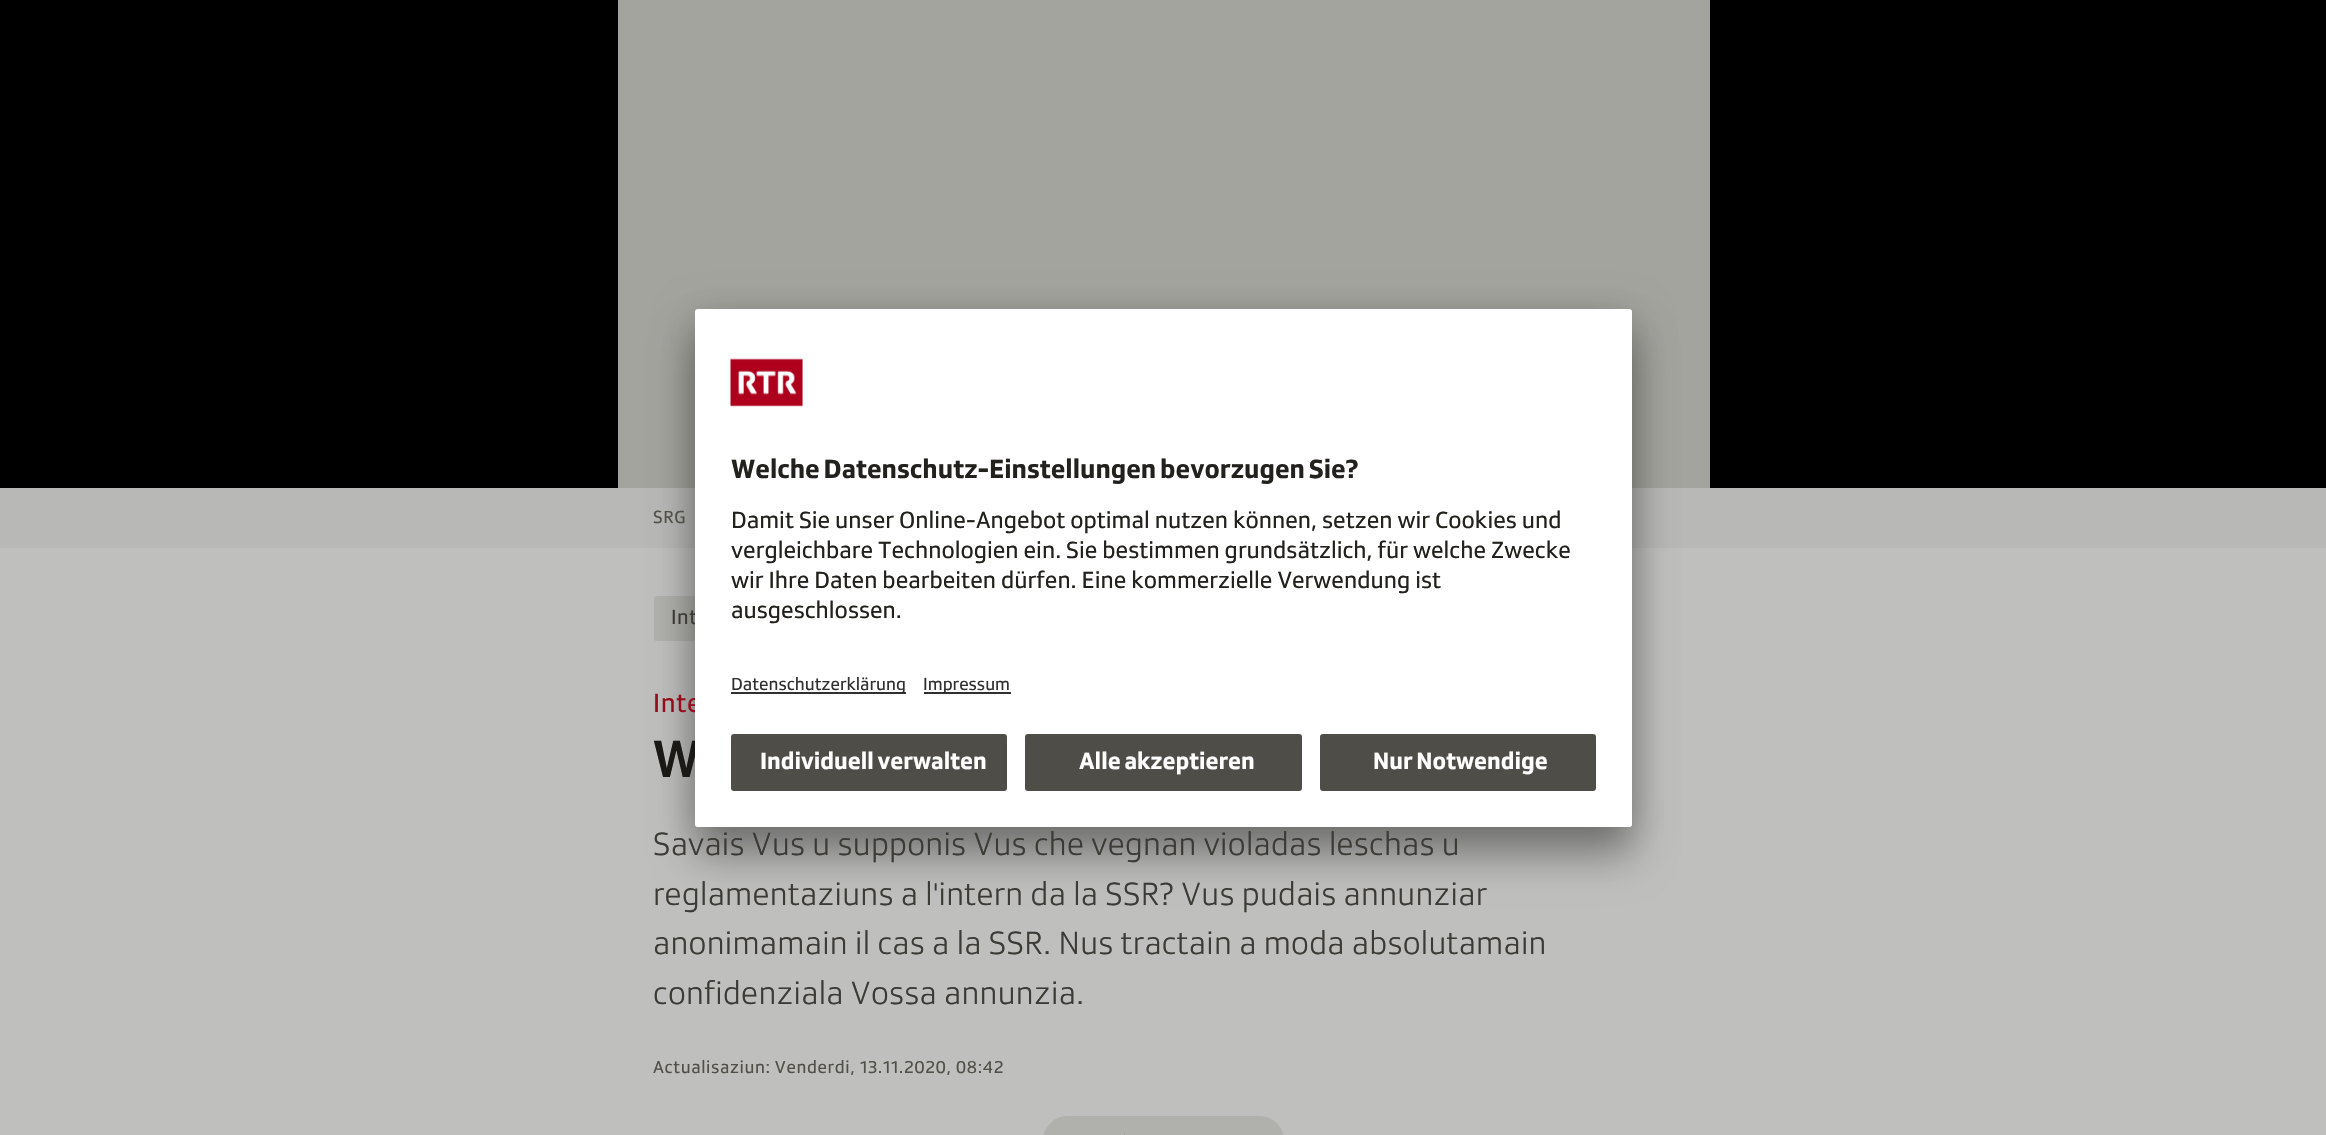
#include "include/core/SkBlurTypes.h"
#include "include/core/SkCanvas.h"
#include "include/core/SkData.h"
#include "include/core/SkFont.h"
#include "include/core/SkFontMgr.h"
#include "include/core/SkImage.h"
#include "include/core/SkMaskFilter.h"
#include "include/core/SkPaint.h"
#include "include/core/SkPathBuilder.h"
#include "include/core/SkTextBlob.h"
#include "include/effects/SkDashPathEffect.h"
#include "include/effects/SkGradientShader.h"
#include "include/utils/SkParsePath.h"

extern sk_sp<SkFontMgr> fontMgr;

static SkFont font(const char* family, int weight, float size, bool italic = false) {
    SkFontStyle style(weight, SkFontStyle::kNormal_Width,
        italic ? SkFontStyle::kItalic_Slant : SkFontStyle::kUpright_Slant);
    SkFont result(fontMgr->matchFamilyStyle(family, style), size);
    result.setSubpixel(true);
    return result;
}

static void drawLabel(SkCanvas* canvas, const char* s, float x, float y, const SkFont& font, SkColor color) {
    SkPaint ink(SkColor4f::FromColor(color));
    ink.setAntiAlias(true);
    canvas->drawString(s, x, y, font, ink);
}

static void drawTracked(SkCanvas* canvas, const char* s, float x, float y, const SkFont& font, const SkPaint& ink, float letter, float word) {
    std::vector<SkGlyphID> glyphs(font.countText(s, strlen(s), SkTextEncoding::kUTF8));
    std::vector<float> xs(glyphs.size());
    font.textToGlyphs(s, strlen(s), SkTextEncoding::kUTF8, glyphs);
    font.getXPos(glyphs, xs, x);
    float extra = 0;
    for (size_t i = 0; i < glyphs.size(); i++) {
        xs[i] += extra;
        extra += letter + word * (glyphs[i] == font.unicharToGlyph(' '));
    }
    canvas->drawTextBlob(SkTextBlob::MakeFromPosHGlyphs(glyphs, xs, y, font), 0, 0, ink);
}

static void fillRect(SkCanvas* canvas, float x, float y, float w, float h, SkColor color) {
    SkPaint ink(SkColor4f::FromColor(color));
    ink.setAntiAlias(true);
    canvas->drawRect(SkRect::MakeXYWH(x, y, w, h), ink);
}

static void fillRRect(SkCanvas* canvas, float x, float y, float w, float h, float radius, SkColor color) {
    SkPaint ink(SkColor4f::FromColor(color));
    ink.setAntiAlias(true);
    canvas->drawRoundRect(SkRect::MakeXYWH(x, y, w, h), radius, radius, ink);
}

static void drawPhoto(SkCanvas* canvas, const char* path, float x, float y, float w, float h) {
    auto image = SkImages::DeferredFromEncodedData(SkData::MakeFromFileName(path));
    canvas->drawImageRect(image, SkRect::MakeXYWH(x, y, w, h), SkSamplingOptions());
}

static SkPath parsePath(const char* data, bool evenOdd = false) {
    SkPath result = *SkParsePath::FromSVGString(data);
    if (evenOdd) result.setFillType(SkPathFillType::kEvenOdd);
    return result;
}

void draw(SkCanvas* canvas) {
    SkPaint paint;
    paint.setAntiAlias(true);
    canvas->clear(0xFFBFBFBE);
    fillRect(canvas, 0, 488, 2326, 60, 0xFFB8B8B6);
    fillRect(canvas, 0, 0, 2326, 488, 0xFF000000);
    fillRect(canvas, 618, 0, 1092, 488, 0xFFA4A49E);
    fillRRect(canvas, 654, 596, 153, 45, 3, 0xFFB0B0AC);
    paint.setColor(0x4D000000);
    paint.setMaskFilter(SkMaskFilter::MakeBlur(kNormal_SkBlurStyle, 21));
    canvas->drawRoundRect(SkRect::MakeXYWH(695, 339, 937, 518), 3, 3, paint);
    paint.setMaskFilter(nullptr);
    paint.setColor(0x38000000);
    paint.setMaskFilter(SkMaskFilter::MakeBlur(kNormal_SkBlurStyle, 19.5f));
    canvas->drawRoundRect(SkRect::MakeXYWH(695, 317, 937, 517), 3, 3, paint);
    paint.setMaskFilter(nullptr);
    SkFont font1 = font("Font", 400, 21);
    paint.setColor(0xFF3B3A35);
    drawTracked(canvas, "Int", 671, 624, font1, paint, 0.6f, 0);
    SkFont font2 = font("Font", 400, 27);
    paint.setColor(0xFF970C1B);
    drawTracked(canvas, "Inte", 653, 712, font2, paint, 0.6f, 0);
    SkFont font3 = font("Font", 500, 54);
    drawLabel(canvas, "W", 653, 777, font3, 0xFF1A1916);
    fillRRect(canvas, 695, 309, 937, 518, 3, 0xFFFFFFFF);
    fillRect(canvas, 695, 311, 937, 1, 0xFFFFFFFF);
    drawPhoto(canvas, "assets/img1.png", 730, 358, 73, 49);
    SkFont font4 = font("Font", 700, 27);
    paint.setColor(0xFF22211D);
    drawTracked(canvas, "Welche Datenschutz-Einstellungen bevorzugen Sie?", 731, 478, font4, paint, 0, -1.5f);
    SkFont font5 = font("Font", 400, 24);
    drawLabel(canvas, "Damit Sie unser Online-Angebot optimal nutzen können, setzen wir Cookies und", 731, 528, font5, 0xFF22211D);
    drawLabel(canvas, "vergleichbare Technologien ein. Sie bestimmen grundsätzlich, für welche Zwecke", 731, 558, font5, 0xFF22211D);
    drawLabel(canvas, "wir Ihre Daten bearbeiten dürfen. Eine kommerzielle Verwendung ist", 731, 588, font5, 0xFF22211D);
    drawLabel(canvas, "ausgeschlossen.", 731, 618, font5, 0xFF22211D);
    fillRect(canvas, 731, 692, 175, 2, 0xFF303030);
    SkFont font6 = font("Font", 400, 18);
    drawLabel(canvas, "Datenschutzerklärung", 731, 690, font6, 0xFF303030);
    fillRect(canvas, 924, 692, 87, 2, 0xFF303030);
    drawLabel(canvas, "Impressum", 923, 690, font6, 0xFF303030);
    paint.setColor(0xFFFFFFFF);
    canvas->drawPath(parsePath("M695 722H1632V824C1632 825.5 1630.5 827 1629 827H698C696.5 827 695 825.5 695 824Z"), paint);
    fillRRect(canvas, 731, 734, 276, 57, 3, 0xFF4E4D47);
    SkFont font7 = font("Font", 700, 24);
    drawTracked(canvas, "Individuell verwalten", 760, 769, font7, paint, 0, -1);
    fillRRect(canvas, 1025, 734, 277, 57, 3, 0xFF4E4D47);
    drawTracked(canvas, "Alle akzeptieren", 1079, 769, font7, paint, 0, -1);
    fillRRect(canvas, 1320, 734, 276, 57, 3, 0xFF4E4D47);
    drawTracked(canvas, "Nur Notwendige", 1373, 769, font7, paint, 0, -1);
    paint.setColor(0xFF504F48);
    drawTracked(canvas, "SRG", 653, 523, font6, paint, 0.6f, 0);
    SkFont font8 = font("Font", 300, 33);
    paint.setColor(0xFF3B3A35);
    drawTracked(canvas, "Savais Vus u supponis Vus che vegnan violadas leschas u", 653, 855, font8, paint, 0.3f, 0);
    drawTracked(canvas, "reglamentaziuns a l'intern da la SSR? Vus pudais annunziar", 653, 905, font8, paint, 0.3f, 0);
    drawTracked(canvas, "anonimamain il cas a la SSR. Nus tractain a moda absolutamain", 653, 954, font8, paint, 0.3f, 0);
    drawTracked(canvas, "confidenziala Vossa annunzia.", 653, 1004, font8, paint, 0.3f, 0);
    paint.setColor(0xFF504F48);
    drawTracked(canvas, "Actualisaziun: Venderdi, 13.11.2020, 08:42", 653, 1073, font6, paint, 0.6f, 0);
    fillRRect(canvas, 1043, 1116, 241, 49, 30, 0xFFB0B0AC);
    paint.setStroke(true);
    paint.setStrokeWidth(1.6f);
    paint.setStrokeJoin(SkPaint::kRound_Join);
    paint.setColor(0xFF3B3A35);
    canvas->drawPath(parsePath("M1124.5 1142C1124.5 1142 1104 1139.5 1104 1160C1110.5 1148 1124.5 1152 1124.5 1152V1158.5L1138.5 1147L1124.5 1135.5Z"), paint);
}
